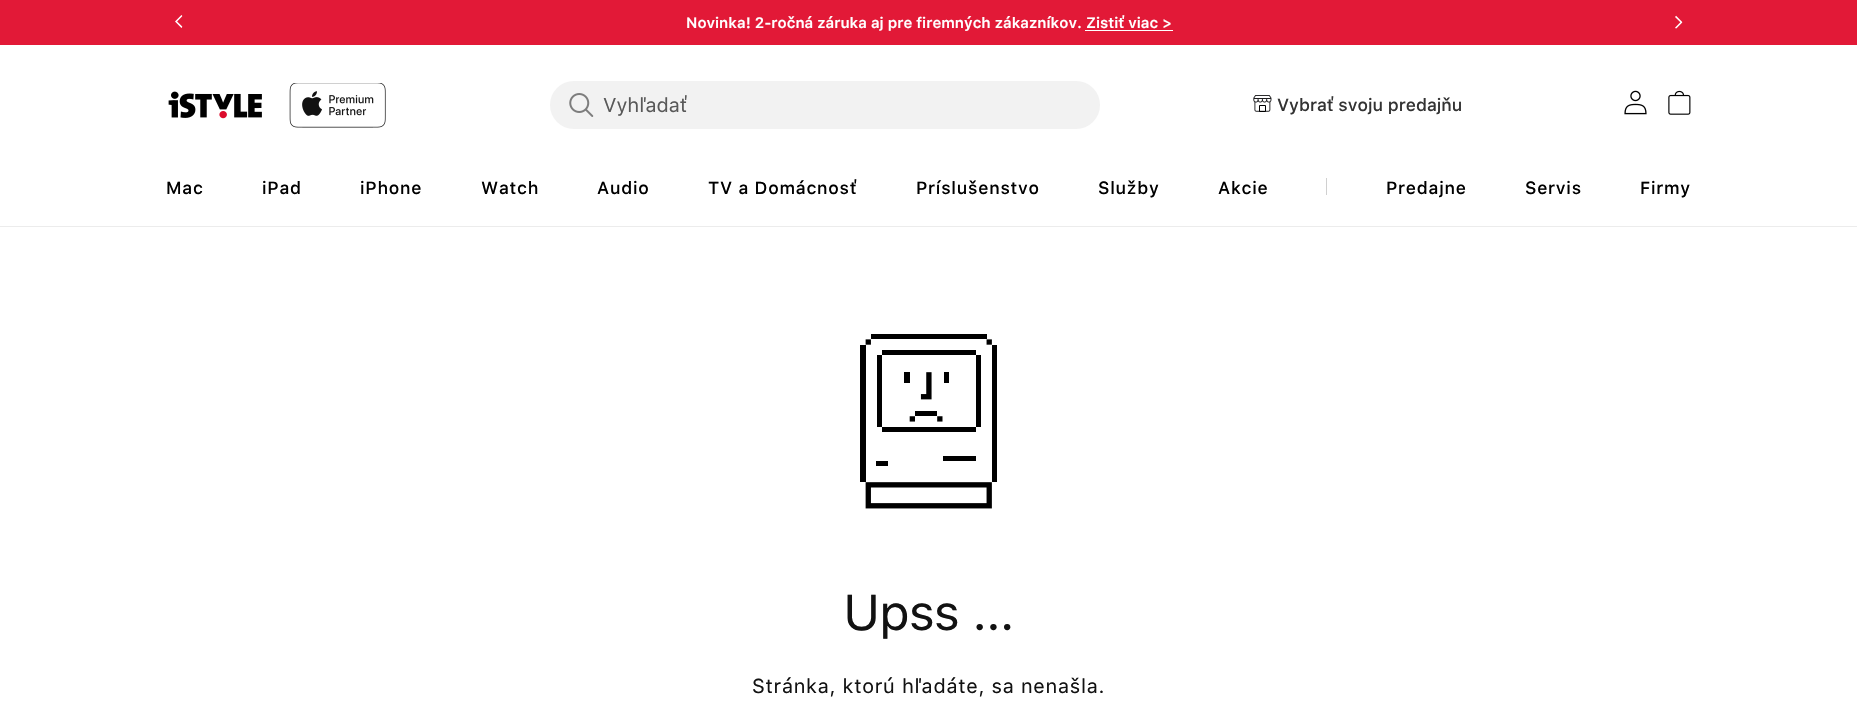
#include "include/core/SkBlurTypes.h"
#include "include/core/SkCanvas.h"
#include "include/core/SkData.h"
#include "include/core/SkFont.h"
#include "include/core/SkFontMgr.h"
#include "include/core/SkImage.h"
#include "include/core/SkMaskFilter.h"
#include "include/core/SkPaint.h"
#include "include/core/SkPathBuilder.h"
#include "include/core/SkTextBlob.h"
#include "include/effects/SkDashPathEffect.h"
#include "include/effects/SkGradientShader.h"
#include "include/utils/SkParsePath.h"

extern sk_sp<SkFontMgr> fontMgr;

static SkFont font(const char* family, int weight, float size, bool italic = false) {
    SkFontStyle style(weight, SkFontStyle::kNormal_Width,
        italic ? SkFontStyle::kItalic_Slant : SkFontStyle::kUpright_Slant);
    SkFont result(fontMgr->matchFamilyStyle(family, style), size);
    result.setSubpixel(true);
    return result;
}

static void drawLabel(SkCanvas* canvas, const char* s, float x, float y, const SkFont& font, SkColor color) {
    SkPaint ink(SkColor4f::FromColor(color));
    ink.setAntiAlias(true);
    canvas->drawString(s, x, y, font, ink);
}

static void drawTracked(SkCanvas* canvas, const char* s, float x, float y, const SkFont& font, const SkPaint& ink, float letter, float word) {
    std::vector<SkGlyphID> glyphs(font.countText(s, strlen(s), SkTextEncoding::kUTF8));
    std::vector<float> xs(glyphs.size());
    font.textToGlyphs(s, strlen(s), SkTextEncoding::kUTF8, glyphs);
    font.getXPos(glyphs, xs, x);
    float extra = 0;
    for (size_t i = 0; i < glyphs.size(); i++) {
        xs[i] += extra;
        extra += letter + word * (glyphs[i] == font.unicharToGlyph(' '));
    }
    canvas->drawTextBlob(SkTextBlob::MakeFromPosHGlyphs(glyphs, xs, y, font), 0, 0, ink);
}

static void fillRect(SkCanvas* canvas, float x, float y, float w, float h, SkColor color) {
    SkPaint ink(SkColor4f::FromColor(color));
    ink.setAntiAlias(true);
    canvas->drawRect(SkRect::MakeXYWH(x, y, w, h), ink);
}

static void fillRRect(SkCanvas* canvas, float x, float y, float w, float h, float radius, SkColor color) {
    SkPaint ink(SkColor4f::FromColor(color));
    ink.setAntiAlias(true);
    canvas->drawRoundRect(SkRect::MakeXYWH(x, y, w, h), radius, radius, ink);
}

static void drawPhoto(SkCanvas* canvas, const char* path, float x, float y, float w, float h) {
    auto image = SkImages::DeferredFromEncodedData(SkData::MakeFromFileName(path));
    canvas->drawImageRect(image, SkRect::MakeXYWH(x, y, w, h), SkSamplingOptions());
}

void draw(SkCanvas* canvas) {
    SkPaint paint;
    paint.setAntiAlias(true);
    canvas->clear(0xFFFFFFFF);
    fillRect(canvas, 0, 0, 1857, 45, 0xFFE21937);
    drawPhoto(canvas, "assets/img1.png", 175, 15, 8, 13);
    SkFont font1 = font("SF Pro Text", 600, 15);
    drawLabel(canvas, "Novinka! 2-ročná záruka aj pre firemných zákazníkov. Zistiť viac >", 686, 28, font1, 0xFFFFFFFF);
    fillRect(canvas, 1085, 30, 88, 1, 0xFFFFFFFF);
    drawPhoto(canvas, "assets/img2.png", 1675, 15, 8, 14);
    fillRect(canvas, 0, 226, 1857, 1, 0xFFECECEC);
    drawPhoto(canvas, "assets/img3.png", 168, 91, 94, 28);
    drawPhoto(canvas, "assets/img4.png", 289, 83, 97, 45);
    fillRRect(canvas, 550, 81, 550, 48, 24, 0xFFF2F2F2);
    drawPhoto(canvas, "assets/img5.png", 569, 93, 25, 24);
    SkFont font2 = font("SF Pro Text", 400, 20);
    drawLabel(canvas, "Vyhľadať", 603, 112, font2, 0xFF595959);
    drawPhoto(canvas, "assets/img6.png", 1253, 95, 19, 17);
    SkFont font3 = font("SF Pro Text", 500, 17.5f);
    drawLabel(canvas, "Vybrať svoju predajňu", 1277, 111, font3, 0xFF333333);
    drawPhoto(canvas, "assets/img7.png", 1624, 90, 23, 25);
    drawPhoto(canvas, "assets/img8.png", 1668, 90, 23, 25);
    paint.setColor(0xFF000000);
    drawTracked(canvas, "Mac", 166, 194, font3, paint, 0.75f, 0);
    drawTracked(canvas, "iPad", 262, 194, font3, paint, 0.75f, 0);
    drawTracked(canvas, "iPhone", 360, 194, font3, paint, 0.75f, 0);
    drawTracked(canvas, "Watch", 481, 194, font3, paint, 0.75f, 0);
    drawTracked(canvas, "Audio", 597, 194, font3, paint, 0.75f, 0);
    drawTracked(canvas, "TV a Domácnosť", 708, 194, font3, paint, 0.75f, 0);
    drawTracked(canvas, "Príslušenstvo", 916, 194, font3, paint, 0.75f, 0);
    drawTracked(canvas, "Služby", 1098, 194, font3, paint, 0.75f, 0);
    drawTracked(canvas, "Akcie", 1218, 194, font3, paint, 0.75f, 0);
    fillRect(canvas, 1326, 178, 1, 17, 0xFFD0D0D0);
    drawTracked(canvas, "Predajne", 1386, 194, font3, paint, 0.75f, 0);
    drawTracked(canvas, "Servis", 1525, 194, font3, paint, 0.75f, 0);
    drawTracked(canvas, "Firmy", 1640, 194, font3, paint, 0.75f, 0);
    drawPhoto(canvas, "assets/img9.png", 860, 334, 137, 175);
    SkFont font4 = font("SF Pro Text", 400, 50);
    paint.setColor(0xFF121212);
    drawTracked(canvas, "Upss ...", 843, 630, font4, paint, -1, 0);
    drawTracked(canvas, "Stránka, ktorú hľadáte, sa nenašla.", 752, 693, font2, paint, 0.75f, 0);
}
